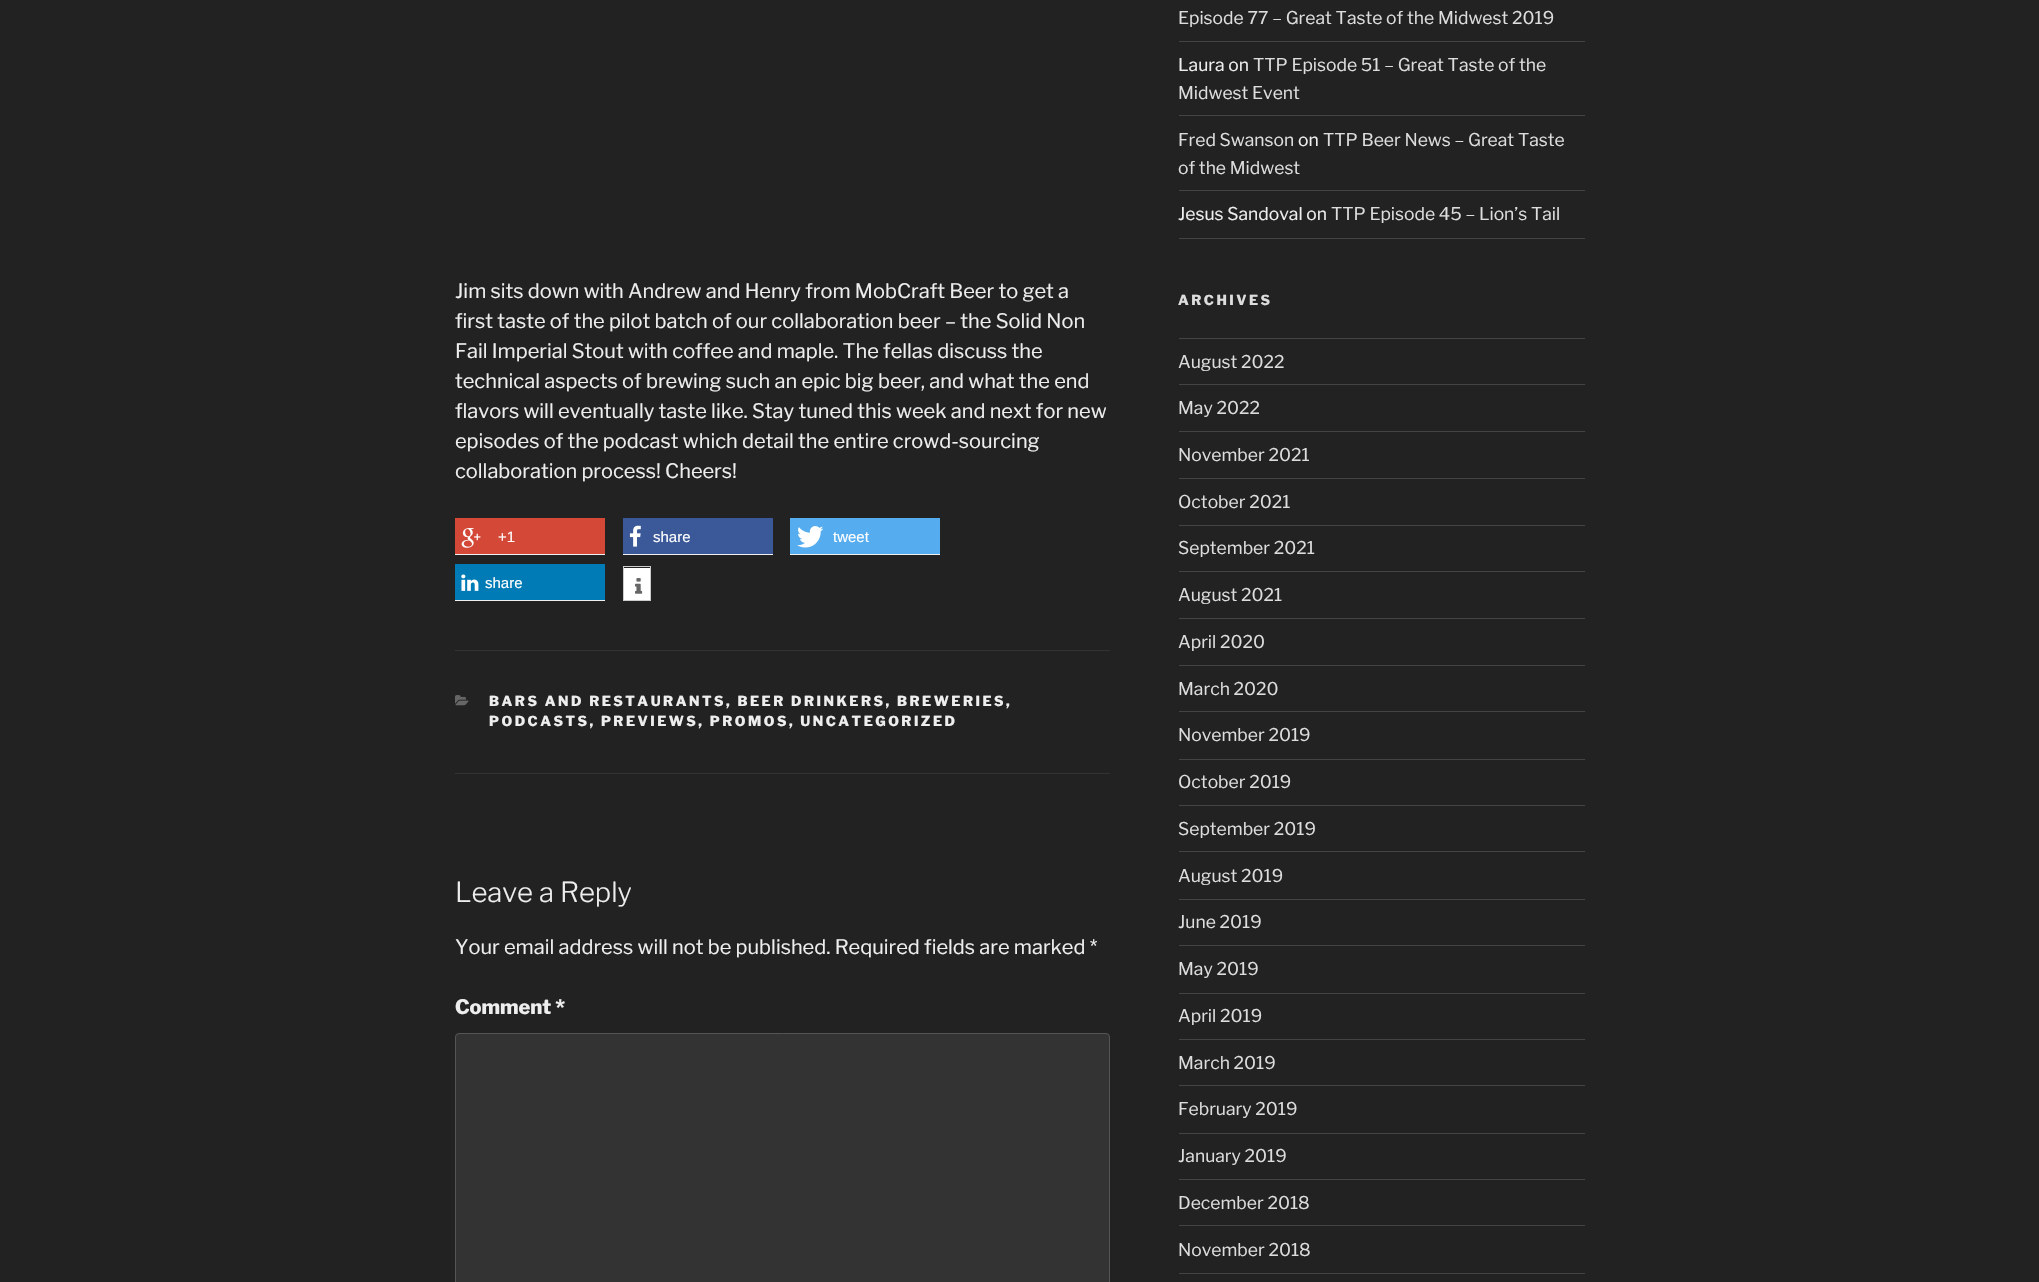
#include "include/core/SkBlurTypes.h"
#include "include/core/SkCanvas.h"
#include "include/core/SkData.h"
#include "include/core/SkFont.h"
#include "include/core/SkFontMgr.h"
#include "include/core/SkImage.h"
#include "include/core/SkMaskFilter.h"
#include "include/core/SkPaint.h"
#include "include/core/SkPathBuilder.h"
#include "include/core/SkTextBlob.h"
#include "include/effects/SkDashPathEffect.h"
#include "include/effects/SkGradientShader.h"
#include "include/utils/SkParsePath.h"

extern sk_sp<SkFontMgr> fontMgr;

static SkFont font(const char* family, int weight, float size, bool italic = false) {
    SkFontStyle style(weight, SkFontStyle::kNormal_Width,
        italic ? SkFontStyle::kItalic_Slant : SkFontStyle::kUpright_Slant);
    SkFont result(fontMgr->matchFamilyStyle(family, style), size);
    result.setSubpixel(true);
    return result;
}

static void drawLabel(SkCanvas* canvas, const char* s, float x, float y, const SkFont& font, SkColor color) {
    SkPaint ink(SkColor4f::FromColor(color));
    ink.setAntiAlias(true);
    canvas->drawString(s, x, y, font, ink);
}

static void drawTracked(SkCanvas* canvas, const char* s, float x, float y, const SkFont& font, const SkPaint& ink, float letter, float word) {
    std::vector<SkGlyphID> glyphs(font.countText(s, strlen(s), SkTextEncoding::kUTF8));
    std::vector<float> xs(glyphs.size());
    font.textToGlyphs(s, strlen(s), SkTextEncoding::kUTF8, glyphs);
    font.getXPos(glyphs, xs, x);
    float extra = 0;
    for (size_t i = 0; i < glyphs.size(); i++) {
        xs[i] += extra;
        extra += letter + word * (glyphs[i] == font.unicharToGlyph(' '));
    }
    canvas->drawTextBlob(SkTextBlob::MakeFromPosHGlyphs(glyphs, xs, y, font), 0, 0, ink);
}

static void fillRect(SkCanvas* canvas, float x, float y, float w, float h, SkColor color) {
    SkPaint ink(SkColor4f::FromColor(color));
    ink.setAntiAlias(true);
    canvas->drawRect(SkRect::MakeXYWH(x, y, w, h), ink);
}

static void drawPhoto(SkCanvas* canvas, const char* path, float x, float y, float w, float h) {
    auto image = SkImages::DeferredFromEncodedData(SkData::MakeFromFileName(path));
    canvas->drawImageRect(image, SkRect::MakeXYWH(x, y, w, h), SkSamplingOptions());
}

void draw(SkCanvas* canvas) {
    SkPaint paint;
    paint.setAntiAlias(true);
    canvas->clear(0xFF222222);
    SkFont font1 = font("Libre Franklin", 400, 20);
    drawLabel(canvas, "Jim sits down with Andrew and Henry from MobCraft Beer to get a", 455, 298, font1, 0xFFEEEEEE);
    drawLabel(canvas, "first taste of the pilot batch of our collaboration beer – the Solid Non", 455, 328, font1, 0xFFEEEEEE);
    drawLabel(canvas, "Fail Imperial Stout with coffee and maple. The fellas discuss the", 455, 358, font1, 0xFFEEEEEE);
    drawLabel(canvas, "technical aspects of brewing such an epic big beer, and what the end", 455, 388, font1, 0xFFEEEEEE);
    drawLabel(canvas, "flavors will eventually taste like. Stay tuned this week and next for new", 455, 418, font1, 0xFFEEEEEE);
    drawLabel(canvas, "episodes of the podcast which detail the entire crowd-sourcing", 455, 448, font1, 0xFFEEEEEE);
    drawLabel(canvas, "collaboration process! Cheers!", 455, 478, font1, 0xFFEEEEEE);
    fillRect(canvas, 455, 518, 150, 36, 0xFFD34836);
    fillRect(canvas, 455, 554, 150, 1, 0xFFF0F0F0);
    drawPhoto(canvas, "assets/img1.png", 461, 528, 20, 20);
    SkFont font2 = font("Liberation Sans", 400, 15);
    drawLabel(canvas, "+1", 498, 542, font2, 0xFFFFFFFF);
    fillRect(canvas, 623, 518, 150, 36, 0xFF3B5998);
    fillRect(canvas, 623, 554, 150, 1, 0xFFF0F0F0);
    drawPhoto(canvas, "assets/img2.png", 629, 525, 12, 22);
    drawLabel(canvas, "share", 653, 542, font2, 0xFFFFFFFF);
    fillRect(canvas, 790, 518, 150, 36, 0xFF55ACEE);
    fillRect(canvas, 790, 554, 150, 1, 0xFFF0F0F0);
    drawPhoto(canvas, "assets/img3.png", 797, 526, 27, 22);
    drawLabel(canvas, "tweet", 833, 542, font2, 0xFFFFFFFF);
    fillRect(canvas, 455, 564, 150, 36, 0xFF007BB6);
    fillRect(canvas, 455, 600, 150, 1, 0xFFF0F0F0);
    drawPhoto(canvas, "assets/img4.png", 461, 574, 18, 17);
    drawLabel(canvas, "share", 485, 588, font2, 0xFFFFFFFF);
    paint.setStroke(true);
    paint.setStrokeWidth(1);
    paint.setColor(0xFFCCCCCC);
    canvas->drawRect(SkRect::MakeXYWH(623.5f, 566.5f, 27, 34), paint);
    fillRect(canvas, 624, 568, 26, 32, 0xFFFFFFFF);
    drawPhoto(canvas, "assets/img5.png", 635, 578, 8, 16);
    fillRect(canvas, 455, 650, 655, 1, 0xFF333333);
    fillRect(canvas, 455, 773, 655, 1, 0xFF333333);
    drawPhoto(canvas, "assets/img6.png", 455, 695, 14, 11);
    SkFont font3 = font("Libre Franklin", 800, 13.75f);
    paint.setStroke(false);
    paint.setColor(0xFFEEEEEE);
    drawTracked(canvas, "BARS AND RESTAURANTS, BEER DRINKERS, BREWERIES,", 489, 706, font3, paint, 2.5f, 0);
    drawTracked(canvas, "PODCASTS, PREVIEWS, PROMOS, UNCATEGORIZED", 489, 726, font3, paint, 2.5f, 0);
    SkFont font4 = font("Libre Franklin", 300, 27.5f);
    drawLabel(canvas, "Leave a Reply", 455, 902, font4, 0xFFEEEEEE);
    drawLabel(canvas, "Your email address will not be published. Required fields are marked *", 455, 954, font1, 0xFFEEEEEE);
    SkFont font5 = font("Libre Franklin", 800, 20);
    drawLabel(canvas, "Comment *", 455, 1014, font5, 0xFFEEEEEE);
    paint.setColor(0xFF333333);
    canvas->drawRoundRect(SkRect::MakeXYWH(455.5f, 1033.5f, 654, 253), 3.5f, 3.5f, paint);
    paint.setStroke(true);
    paint.setColor(0xFF555555);
    canvas->drawRoundRect(SkRect::MakeXYWH(455.5f, 1033.5f, 654, 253), 3.5f, 3.5f, paint);
    fillRect(canvas, 1179, 41, 406, 1, 0xFF444444);
    SkFont font6 = font("Libre Franklin", 400, 17.5f);
    drawLabel(canvas, "Episode 77 – Great Taste of the Midwest 2019", 1178, 24, font6, 0xFFDDDDDD);
    fillRect(canvas, 1179, 115, 406, 1, 0xFF444444);
    drawLabel(canvas, "Laura on", 1178, 71, font6, 0xFFEEEEEE);
    drawLabel(canvas, "TTP Episode 51 – Great Taste of the", 1253, 71, font6, 0xFFDDDDDD);
    drawLabel(canvas, "Midwest Event", 1178, 99, font6, 0xFFDDDDDD);
    fillRect(canvas, 1179, 190, 406, 1, 0xFF444444);
    drawLabel(canvas, "Fred Swanson", 1178, 146, font6, 0xFFDDDDDD);
    drawLabel(canvas, "on", 1298, 146, font6, 0xFFEEEEEE);
    drawLabel(canvas, "TTP Beer News – Great Taste", 1323, 146, font6, 0xFFDDDDDD);
    drawLabel(canvas, "of the Midwest", 1178, 174, font6, 0xFFDDDDDD);
    fillRect(canvas, 1179, 238, 406, 1, 0xFF444444);
    drawLabel(canvas, "Jesus Sandoval on", 1178, 220, font6, 0xFFEEEEEE);
    drawLabel(canvas, "TTP Episode 45 – Lion’s Tail", 1331, 220, font6, 0xFFDDDDDD);
    paint.setStroke(false);
    paint.setColor(0xFFDDDDDD);
    drawTracked(canvas, "ARCHIVES", 1178, 305, font3, paint, 2.5f, 0);
    fillRect(canvas, 1179, 338, 406, 1, 0xFF444444);
    fillRect(canvas, 1179, 384, 406, 1, 0xFF444444);
    drawLabel(canvas, "August 2022", 1178, 368, font6, 0xFFDDDDDD);
    fillRect(canvas, 1179, 431, 406, 1, 0xFF444444);
    drawLabel(canvas, "May 2022", 1178, 414, font6, 0xFFDDDDDD);
    fillRect(canvas, 1179, 478, 406, 1, 0xFF444444);
    drawLabel(canvas, "November 2021", 1178, 461, font6, 0xFFDDDDDD);
    fillRect(canvas, 1179, 525, 406, 1, 0xFF444444);
    drawLabel(canvas, "October 2021", 1178, 508, font6, 0xFFDDDDDD);
    fillRect(canvas, 1179, 571, 406, 1, 0xFF444444);
    drawLabel(canvas, "September 2021", 1178, 554, font6, 0xFFDDDDDD);
    fillRect(canvas, 1179, 618, 406, 1, 0xFF444444);
    drawLabel(canvas, "August 2021", 1178, 601, font6, 0xFFDDDDDD);
    fillRect(canvas, 1179, 665, 406, 1, 0xFF444444);
    drawLabel(canvas, "April 2020", 1178, 648, font6, 0xFFDDDDDD);
    fillRect(canvas, 1179, 711, 406, 1, 0xFF444444);
    drawLabel(canvas, "March 2020", 1178, 695, font6, 0xFFDDDDDD);
    fillRect(canvas, 1179, 759, 406, 1, 0xFF444444);
    drawLabel(canvas, "November 2019", 1178, 741, font6, 0xFFDDDDDD);
    fillRect(canvas, 1179, 805, 406, 1, 0xFF444444);
    drawLabel(canvas, "October 2019", 1178, 788, font6, 0xFFDDDDDD);
    fillRect(canvas, 1179, 851, 406, 1, 0xFF444444);
    drawLabel(canvas, "September 2019", 1178, 835, font6, 0xFFDDDDDD);
    fillRect(canvas, 1179, 899, 406, 1, 0xFF444444);
    drawLabel(canvas, "August 2019", 1178, 882, font6, 0xFFDDDDDD);
    fillRect(canvas, 1179, 945, 406, 1, 0xFF444444);
    drawLabel(canvas, "June 2019", 1178, 928, font6, 0xFFDDDDDD);
    fillRect(canvas, 1179, 993, 406, 1, 0xFF444444);
    drawLabel(canvas, "May 2019", 1178, 975, font6, 0xFFDDDDDD);
    fillRect(canvas, 1179, 1039, 406, 1, 0xFF444444);
    drawLabel(canvas, "April 2019", 1178, 1022, font6, 0xFFDDDDDD);
    fillRect(canvas, 1179, 1085, 406, 1, 0xFF444444);
    drawLabel(canvas, "March 2019", 1178, 1069, font6, 0xFFDDDDDD);
    fillRect(canvas, 1179, 1133, 406, 1, 0xFF444444);
    drawLabel(canvas, "February 2019", 1178, 1115, font6, 0xFFDDDDDD);
    fillRect(canvas, 1179, 1179, 406, 1, 0xFF444444);
    drawLabel(canvas, "January 2019", 1178, 1162, font6, 0xFFDDDDDD);
    fillRect(canvas, 1179, 1225, 406, 1, 0xFF444444);
    drawLabel(canvas, "December 2018", 1178, 1209, font6, 0xFFDDDDDD);
    fillRect(canvas, 1179, 1273, 406, 1, 0xFF444444);
    drawLabel(canvas, "November 2018", 1178, 1256, font6, 0xFFDDDDDD);
}
